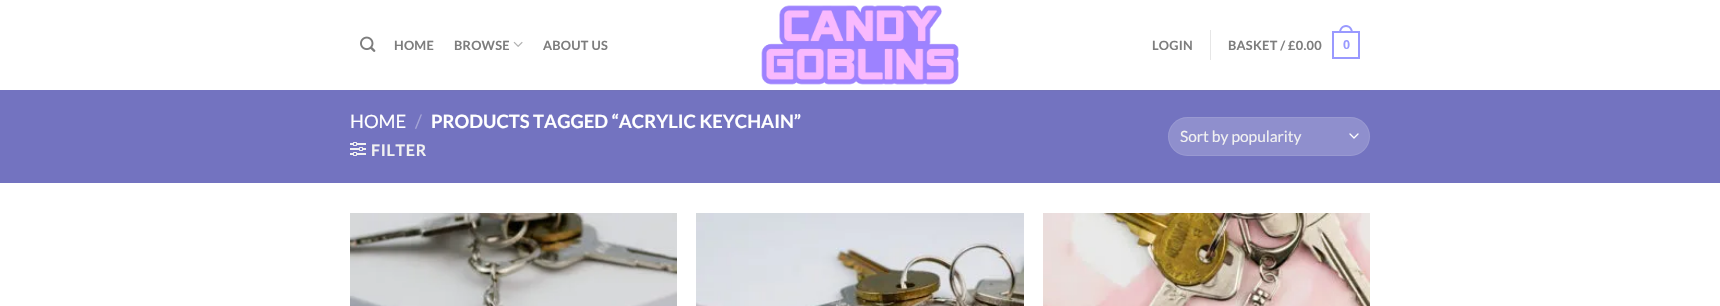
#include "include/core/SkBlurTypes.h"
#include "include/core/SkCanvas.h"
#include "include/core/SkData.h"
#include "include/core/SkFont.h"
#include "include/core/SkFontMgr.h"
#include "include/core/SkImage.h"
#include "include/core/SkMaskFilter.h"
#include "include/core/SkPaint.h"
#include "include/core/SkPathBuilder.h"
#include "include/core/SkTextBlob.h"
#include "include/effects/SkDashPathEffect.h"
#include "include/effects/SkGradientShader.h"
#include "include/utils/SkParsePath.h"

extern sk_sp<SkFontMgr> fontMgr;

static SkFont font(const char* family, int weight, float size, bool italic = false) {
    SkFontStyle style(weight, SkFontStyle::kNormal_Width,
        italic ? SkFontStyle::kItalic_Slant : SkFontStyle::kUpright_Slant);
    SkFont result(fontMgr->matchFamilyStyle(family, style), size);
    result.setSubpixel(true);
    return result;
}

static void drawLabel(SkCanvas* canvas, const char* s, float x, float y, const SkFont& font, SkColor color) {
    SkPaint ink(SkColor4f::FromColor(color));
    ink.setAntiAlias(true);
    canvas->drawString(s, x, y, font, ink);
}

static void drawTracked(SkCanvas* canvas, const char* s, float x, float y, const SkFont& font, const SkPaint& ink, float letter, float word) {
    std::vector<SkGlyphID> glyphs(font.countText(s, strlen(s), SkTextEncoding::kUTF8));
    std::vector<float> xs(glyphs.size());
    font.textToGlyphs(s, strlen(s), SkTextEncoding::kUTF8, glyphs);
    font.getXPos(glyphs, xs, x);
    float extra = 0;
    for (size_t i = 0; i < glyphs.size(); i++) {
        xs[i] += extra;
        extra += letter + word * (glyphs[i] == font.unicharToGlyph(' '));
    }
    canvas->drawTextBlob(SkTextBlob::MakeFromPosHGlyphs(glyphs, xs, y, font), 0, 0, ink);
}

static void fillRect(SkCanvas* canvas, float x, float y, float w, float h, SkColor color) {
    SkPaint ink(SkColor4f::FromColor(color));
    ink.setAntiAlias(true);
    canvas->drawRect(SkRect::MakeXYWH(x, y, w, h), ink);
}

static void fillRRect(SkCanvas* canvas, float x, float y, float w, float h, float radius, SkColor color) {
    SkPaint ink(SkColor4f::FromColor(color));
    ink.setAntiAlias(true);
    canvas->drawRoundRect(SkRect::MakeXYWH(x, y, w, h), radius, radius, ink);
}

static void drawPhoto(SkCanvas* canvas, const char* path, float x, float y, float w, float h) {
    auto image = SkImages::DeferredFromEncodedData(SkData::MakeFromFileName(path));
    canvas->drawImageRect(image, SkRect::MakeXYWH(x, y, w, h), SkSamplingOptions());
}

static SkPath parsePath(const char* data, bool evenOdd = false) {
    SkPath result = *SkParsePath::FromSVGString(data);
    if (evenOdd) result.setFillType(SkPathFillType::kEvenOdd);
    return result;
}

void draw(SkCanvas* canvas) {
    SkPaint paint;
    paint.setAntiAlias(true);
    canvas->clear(0xFFFFFFFF);
    drawPhoto(canvas, "assets/img1.png", 360, 36, 16, 16);
    SkFont font1 = font("Lato", 700, 12.75f);
    paint.setColor(0xFF7D7D7D);
    drawTracked(canvas, "HOME", 394, 50, font1, paint, 0.25f, 0);
    drawTracked(canvas, "BROWSE", 454, 50, font1, paint, 0.25f, 0);
    drawPhoto(canvas, "assets/img2.png", 513, 41, 10, 6);
    drawTracked(canvas, "ABOUT US", 543, 50, font1, paint, 0.25f, 0);
    drawPhoto(canvas, "assets/img3.png", 761, 5, 198, 80);
    drawTracked(canvas, "LOGIN", 1152, 50, font1, paint, 0.25f, 0);
    fillRect(canvas, 1210, 30, 1, 30, 0xFFE6E6E6);
    drawTracked(canvas, "BASKET / £0.00", 1228, 50, font1, paint, 0.25f, 0);
    paint.setStroke(true);
    paint.setStrokeWidth(2);
    paint.setColor(0xFF9999FF);
    canvas->drawRect(SkRect::MakeXYWH(1333, 32, 26, 26), paint);
    paint.setStroke(false);
    canvas->drawPath(parsePath("M1346 25C1350.5 25 1353 29 1353 33H1339C1339 29 1341.5 25 1346 25ZM1346 27C1349.5 27 1351 30 1351 33H1341C1341 30 1342.5 27 1346 27Z", true), paint);
    SkFont font2 = font("Liberation Sans", 700, 12.75f);
    drawTracked(canvas, "0", 1343, 49, font2, paint, 0.25f, 0);
    fillRect(canvas, 0, 90, 1720, 93, 0xFF7373C0);
    fillRect(canvas, 350, 90, 1020, 1, 0xFF7373B9);
    SkFont font3 = font("Lato", 400, 18.4f);
    drawLabel(canvas, "HOME", 350, 128, font3, 0xFFFFFFFF);
    drawLabel(canvas, "/", 415, 128, font3, 0xFFA4A4D6);
    SkFont font4 = font("Lato", 700, 18.4f);
    drawLabel(canvas, "PRODUCTS TAGGED “ACRYLIC KEYCHAIN”", 431, 128, font4, 0xFFFFFFFF);
    drawPhoto(canvas, "assets/img4.png", 350, 142, 16, 14);
    SkFont font5 = font("Lato", 700, 16);
    paint.setColor(0xFFF1F1F1);
    drawTracked(canvas, "FILTER", 371, 156, font5, paint, 0.75f, 0);
    fillRRect(canvas, 1168, 117, 202, 39, 19.5f, 0xFF8F8FCD);
    paint.setStroke(true);
    paint.setStrokeWidth(1.3f);
    paint.setStrokeCap(SkPaint::kRound_Cap);
    paint.setStrokeJoin(SkPaint::kRound_Join);
    paint.setColor(0xFFFFFFFF);
    canvas->drawPath(parsePath("M1350 134L1354 138L1358 134"), paint);
    paint.setStrokeWidth(1);
    paint.setStrokeCap(SkPaint::kButt_Cap);
    paint.setStrokeJoin(SkPaint::kMiter_Join);
    paint.setColor(0x17FFFFFF);
    canvas->drawRoundRect(SkRect::MakeXYWH(1168.5f, 117.5f, 201, 38), 19, 19, paint);
    SkFont font6 = font("Lato", 400, 15.5f);
    drawLabel(canvas, "Sort by popularity", 1180, 142, font6, 0xFFF1F1F1);
    drawPhoto(canvas, "assets/img5.png", 350, 213, 327, 93);
    drawPhoto(canvas, "assets/img6.png", 696, 213, 328, 93);
    drawPhoto(canvas, "assets/img7.png", 1043, 213, 327, 93);
}
